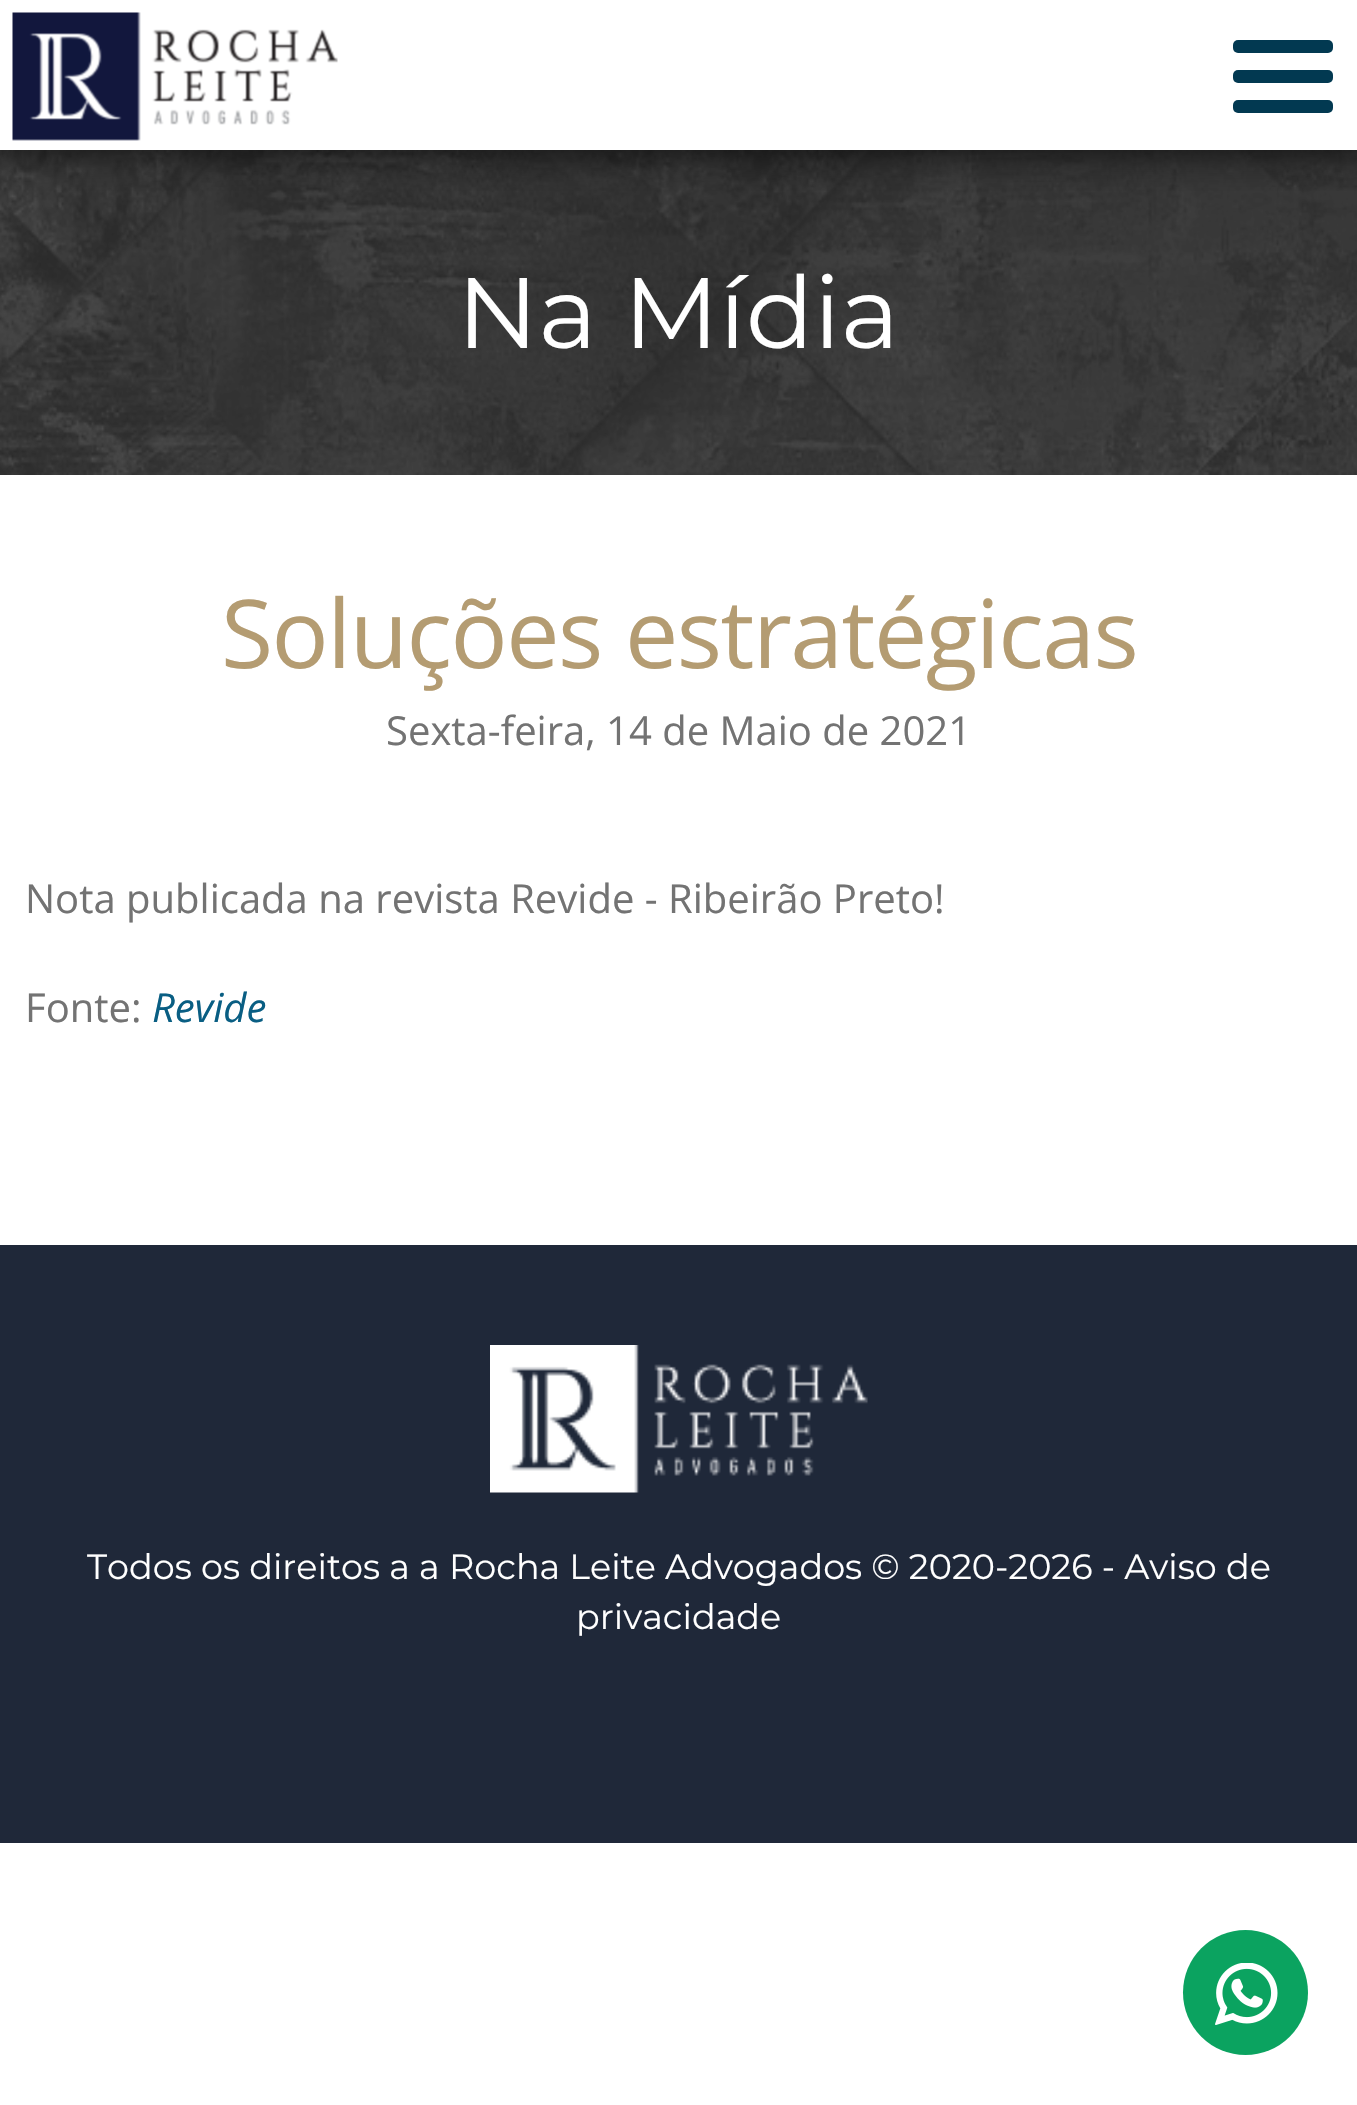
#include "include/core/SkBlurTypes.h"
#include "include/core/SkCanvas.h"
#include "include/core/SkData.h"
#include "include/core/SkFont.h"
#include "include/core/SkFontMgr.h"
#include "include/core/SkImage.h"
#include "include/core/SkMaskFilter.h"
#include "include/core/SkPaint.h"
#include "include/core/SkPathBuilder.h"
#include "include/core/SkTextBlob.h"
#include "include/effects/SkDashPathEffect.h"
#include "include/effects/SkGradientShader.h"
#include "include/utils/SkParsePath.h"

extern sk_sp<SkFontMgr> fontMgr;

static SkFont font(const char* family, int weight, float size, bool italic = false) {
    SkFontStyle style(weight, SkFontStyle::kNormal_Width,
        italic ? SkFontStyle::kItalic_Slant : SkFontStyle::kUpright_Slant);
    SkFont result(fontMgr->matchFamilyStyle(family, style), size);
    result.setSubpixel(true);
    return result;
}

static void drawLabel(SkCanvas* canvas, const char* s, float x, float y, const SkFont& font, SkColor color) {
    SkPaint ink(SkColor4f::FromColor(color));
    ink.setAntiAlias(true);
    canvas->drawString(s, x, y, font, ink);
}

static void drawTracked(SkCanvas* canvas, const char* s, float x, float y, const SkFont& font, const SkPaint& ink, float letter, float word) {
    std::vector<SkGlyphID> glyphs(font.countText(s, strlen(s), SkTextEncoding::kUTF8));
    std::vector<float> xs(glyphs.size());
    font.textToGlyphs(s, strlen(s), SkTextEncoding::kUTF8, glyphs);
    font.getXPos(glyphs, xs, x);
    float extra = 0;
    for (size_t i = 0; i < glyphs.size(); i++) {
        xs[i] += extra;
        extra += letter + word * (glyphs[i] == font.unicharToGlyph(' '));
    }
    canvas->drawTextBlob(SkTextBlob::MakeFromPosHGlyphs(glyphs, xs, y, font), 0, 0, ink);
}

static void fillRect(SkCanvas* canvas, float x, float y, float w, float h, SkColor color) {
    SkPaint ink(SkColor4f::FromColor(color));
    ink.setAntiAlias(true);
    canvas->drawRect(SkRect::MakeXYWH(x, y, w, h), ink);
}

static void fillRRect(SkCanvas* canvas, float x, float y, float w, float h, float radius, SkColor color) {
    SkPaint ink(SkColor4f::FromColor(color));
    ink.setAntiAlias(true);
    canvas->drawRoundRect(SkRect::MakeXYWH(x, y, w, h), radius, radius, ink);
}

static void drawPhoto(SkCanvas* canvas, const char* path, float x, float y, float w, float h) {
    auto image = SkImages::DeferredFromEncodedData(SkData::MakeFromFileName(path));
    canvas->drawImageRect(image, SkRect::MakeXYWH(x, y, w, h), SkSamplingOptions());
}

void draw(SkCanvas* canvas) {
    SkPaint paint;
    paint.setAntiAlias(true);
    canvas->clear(0xFFFFFFFF);
    drawPhoto(canvas, "assets/img2.png", 0, 150, 1357, 325);
    canvas->save();
    canvas->clipRect(SkRect::MakeXYWH(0, 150, 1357, 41));
    paint.setColor(0xFF000000);
    paint.setMaskFilter(SkMaskFilter::MakeBlur(kNormal_SkBlurStyle, 22.5f));
    canvas->drawRect(SkRect::MakeXYWH(-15, -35, 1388, 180), paint);
    paint.setMaskFilter(nullptr);
    canvas->restore();
    fillRRect(canvas, 1233, 70, 100, 13, 5, 0xFF023951);
    fillRRect(canvas, 1233, 40, 100, 13, 5, 0xFF023951);
    fillRRect(canvas, 1233, 100, 100, 13, 5, 0xFF023951);
    drawPhoto(canvas, "assets/img1.png", 12, 12, 326, 129);
    SkFont font1 = font("Montserrat", 400, 100);
    drawLabel(canvas, "Na Mídia", 457, 348, font1, 0xFFFFFFFF);
    SkFont font2 = font("Open Sans", 400, 95);
    paint.setColor(0xFFB49C72);
    drawTracked(canvas, "Soluções estratégicas", 221, 668, font2, paint, -1.5f, 0);
    SkFont font3 = font("Open Sans", 400, 40);
    drawLabel(canvas, "Sexta-feira, 14 de Maio de 2021", 386, 745, font3, 0xFF737373);
    drawLabel(canvas, "Nota publicada na revista Revide - Ribeirão Preto!", 25, 913, font3, 0xFF737373);
    drawLabel(canvas, "Fonte:", 25, 1022, font3, 0xFF737373);
    SkFont font4 = font("Open Sans", 400, 40, true);
    drawLabel(canvas, "Revide", 152, 1022, font4, 0xFF095E83);
    fillRect(canvas, 0, 1245, 1357, 598, 0xFF1F2839);
    drawPhoto(canvas, "assets/img3.png", 490, 1345, 378, 148);
    SkFont font5 = font("Montserrat", 400, 35);
    drawLabel(canvas, "Todos os direitos a a Rocha Leite Advogados © 2020-2026 - Aviso de", 87, 1579, font5, 0xFFFFFFFF);
    drawLabel(canvas, "privacidade", 576, 1629, font5, 0xFFFFFFFF);
    paint.setColor(0xFF0BA360);
    canvas->drawCircle(1245.5f, 1992.5f, 62.5f, paint);
    drawPhoto(canvas, "assets/img4.png", 1215, 1963, 63, 62);
}
